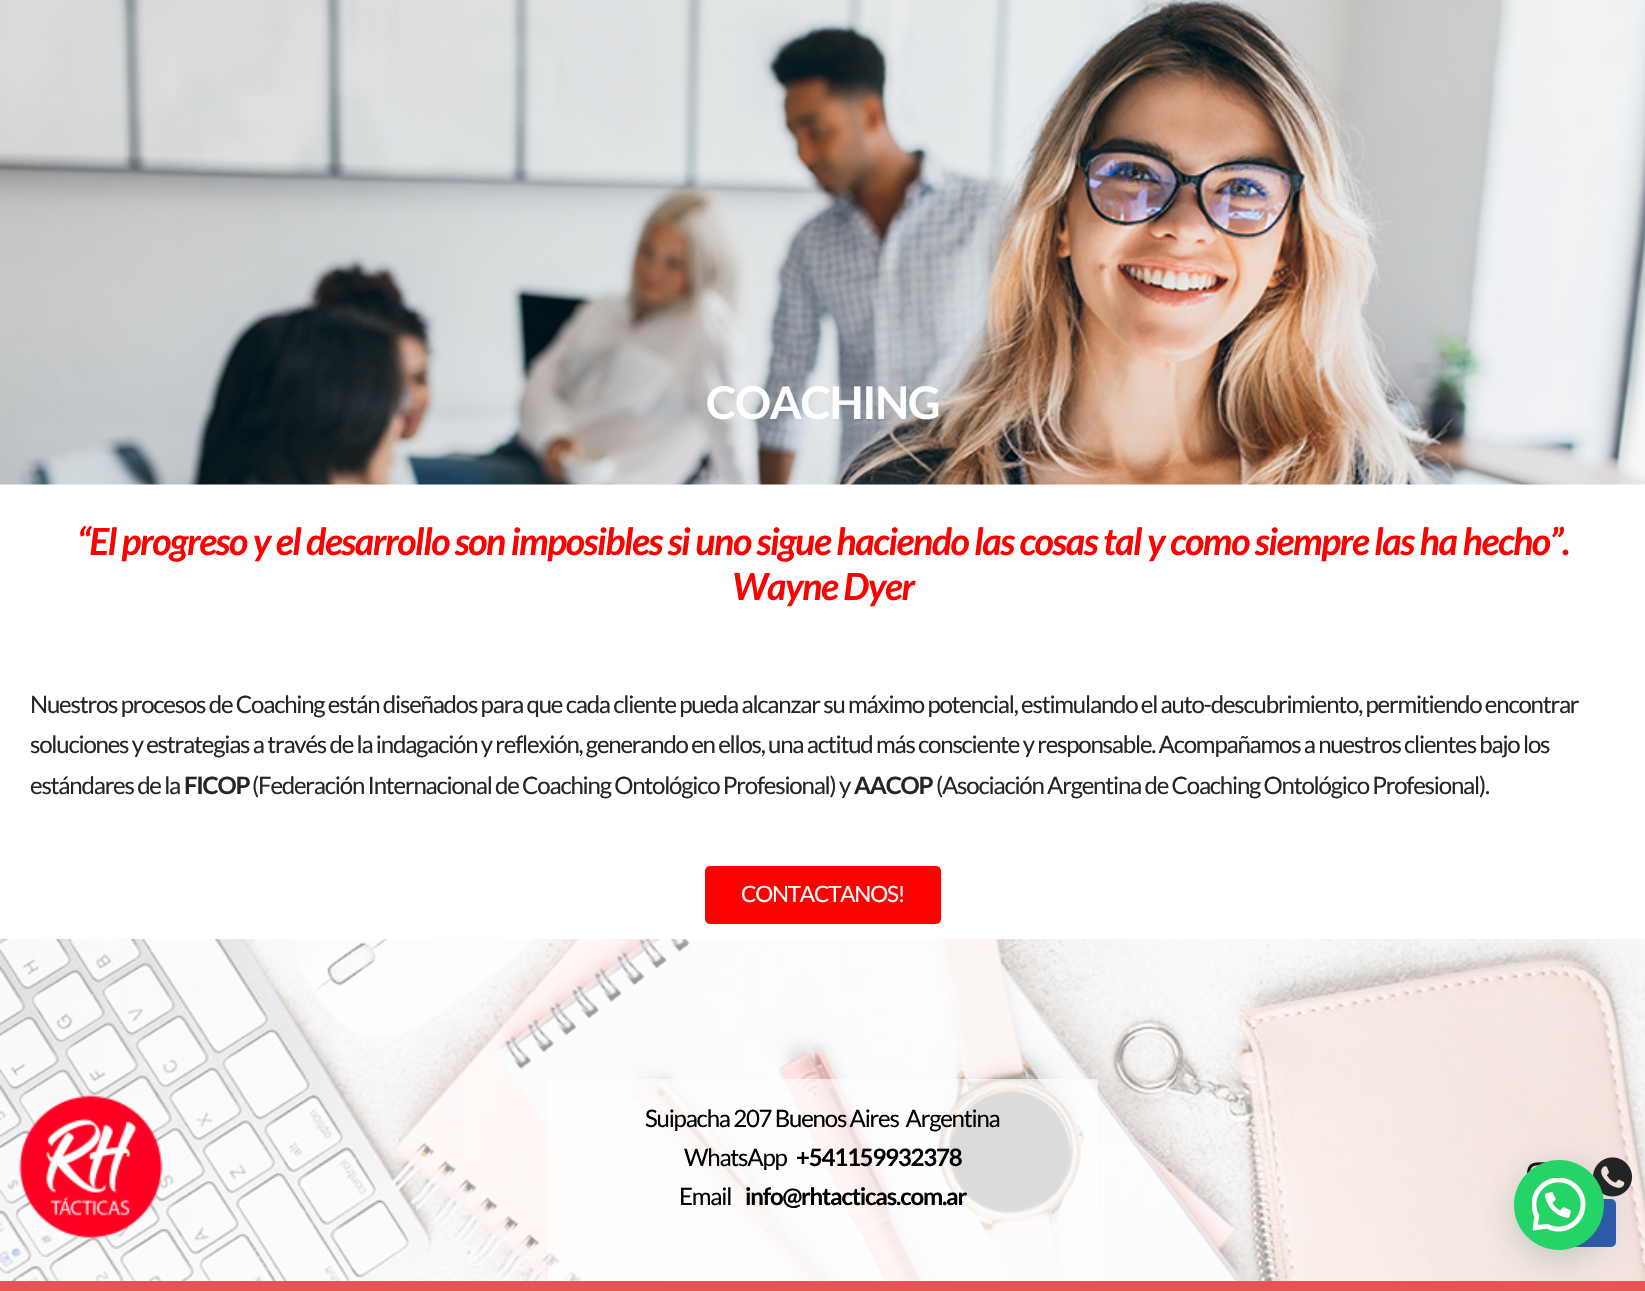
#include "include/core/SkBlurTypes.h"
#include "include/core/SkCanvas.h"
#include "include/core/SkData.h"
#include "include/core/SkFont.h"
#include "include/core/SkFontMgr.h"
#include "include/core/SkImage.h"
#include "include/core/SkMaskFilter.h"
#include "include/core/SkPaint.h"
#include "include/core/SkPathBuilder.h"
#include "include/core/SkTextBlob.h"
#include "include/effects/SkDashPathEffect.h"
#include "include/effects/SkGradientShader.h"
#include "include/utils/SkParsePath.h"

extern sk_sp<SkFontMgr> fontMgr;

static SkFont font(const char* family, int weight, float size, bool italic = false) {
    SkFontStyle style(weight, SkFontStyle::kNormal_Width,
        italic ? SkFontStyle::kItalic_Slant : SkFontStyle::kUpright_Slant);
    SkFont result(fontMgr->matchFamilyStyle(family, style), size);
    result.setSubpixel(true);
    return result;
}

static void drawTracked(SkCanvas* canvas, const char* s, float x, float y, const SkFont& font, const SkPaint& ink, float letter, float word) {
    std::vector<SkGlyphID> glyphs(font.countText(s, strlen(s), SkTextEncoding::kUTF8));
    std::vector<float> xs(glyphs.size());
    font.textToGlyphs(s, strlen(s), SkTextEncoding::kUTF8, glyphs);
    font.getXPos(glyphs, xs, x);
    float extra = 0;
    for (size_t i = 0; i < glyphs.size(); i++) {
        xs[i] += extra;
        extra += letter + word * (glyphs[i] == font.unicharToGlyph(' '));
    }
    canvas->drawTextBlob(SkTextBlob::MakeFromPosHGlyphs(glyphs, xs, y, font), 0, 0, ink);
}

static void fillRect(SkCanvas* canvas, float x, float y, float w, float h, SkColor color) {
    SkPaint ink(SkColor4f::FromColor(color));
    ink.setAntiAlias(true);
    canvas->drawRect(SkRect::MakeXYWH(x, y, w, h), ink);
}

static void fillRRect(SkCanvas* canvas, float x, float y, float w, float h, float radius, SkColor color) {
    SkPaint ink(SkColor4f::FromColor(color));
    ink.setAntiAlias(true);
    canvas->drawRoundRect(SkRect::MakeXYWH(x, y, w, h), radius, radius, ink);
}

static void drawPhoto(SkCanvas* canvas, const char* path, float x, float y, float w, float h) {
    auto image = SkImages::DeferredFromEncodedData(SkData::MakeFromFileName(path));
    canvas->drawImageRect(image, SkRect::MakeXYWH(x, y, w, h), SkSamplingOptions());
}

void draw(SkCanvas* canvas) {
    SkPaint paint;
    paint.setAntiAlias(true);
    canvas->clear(0xFFFFFFFF);
    drawPhoto(canvas, "assets/img1.png", 0, 0, 1645, 485);
    SkFont font1 = font("Lato", 700, 45);
    paint.setColor(0xFFFFFFFF);
    drawTracked(canvas, "COACHING", 706, 419, font1, paint, -1.2f, 0);
    SkFont font2 = font("Lato", 700, 37.5f, true);
    paint.setColor(0xFFFF0000);
    drawTracked(canvas, "“El progreso y el desarrollo son imposibles si uno sigue haciendo las cosas tal y como siempre las ha hecho”.", 77, 555, font2, paint, -1.35f, 0);
    drawTracked(canvas, "Wayne Dyer", 732, 600, font2, paint, -1.35f, 0);
    SkFont font3 = font("Lato", 400, 24);
    paint.setColor(0xFF272626);
    drawTracked(canvas, "Nuestros procesos de Coaching están diseñados para que cada cliente pueda alcanzar su máximo potencial, estimulando el auto-descubrimiento, permitiendo encontrar", 30, 713, font3, paint, -1.2f, 0);
    drawTracked(canvas, "soluciones y estrategias a través de la indagación y reflexión, generando en ellos, una actitud más consciente y responsable. Acompañamos a nuestros clientes bajo los", 30, 753, font3, paint, -1.2f, 0);
    drawTracked(canvas, "estándares de la", 30, 794, font3, paint, -1.2f, 0);
    SkFont font4 = font("Lato", 700, 24);
    drawTracked(canvas, "FICOP", 184, 794, font4, paint, -1.2f, 0);
    drawTracked(canvas, "(Federación Internacional de Coaching Ontológico Profesional) y", 252, 794, font3, paint, -1.2f, 0);
    drawTracked(canvas, "AACOP", 854, 794, font4, paint, -1.2f, 0);
    drawTracked(canvas, "(Asociación Argentina de Coaching Ontológico Profesional).", 936, 794, font3, paint, -1.2f, 0);
    fillRRect(canvas, 705, 866, 236, 58, 5, 0xFFFF0000);
    SkFont font5 = font("Lato", 400, 22.5f);
    paint.setColor(0xFFFFFFFF);
    drawTracked(canvas, "CONTACTANOS!", 741, 902, font5, paint, -1.2f, 0);
    drawPhoto(canvas, "assets/img2.png", 0, 939, 1645, 342);
    drawPhoto(canvas, "assets/img3.png", 19, 1094, 144, 144);
    fillRect(canvas, 548, 1079, 550, 202, 0xA6FFFFFF);
    paint.setColor(0xFF000000);
    drawTracked(canvas, "Suipacha 207 Buenos Aires  Argentina", 645, 1127, font3, paint, -1.2f, 0);
    drawTracked(canvas, "WhatsApp", 684, 1166, font3, paint, -1.2f, 0);
    drawTracked(canvas, "+541159932378", 796, 1166, font4, paint, -1.2f, 0);
    drawTracked(canvas, "Email", 679, 1205, font3, paint, -1.2f, 0);
    drawTracked(canvas, "info@rhtacticas.com.ar", 745, 1205, font4, paint, -1.2f, 0);
    drawPhoto(canvas, "assets/img4.png", 1527, 1162, 19, 12);
    drawPhoto(canvas, "assets/img5.png", 1593, 1157, 39, 40);
    fillRect(canvas, 0, 1281, 1645, 10, 0xFFEA5356);
    fillRRect(canvas, 1562, 1199, 54, 48, 5, 0xFF2F5AAE);
    paint.setColor(0x3D075E54);
    paint.setMaskFilter(SkMaskFilter::MakeBlur(kNormal_SkBlurStyle, 18));
    canvas->drawRoundRect(SkRect::MakeXYWH(1515, 1169, 90, 90), 45, 45, paint);
    paint.setMaskFilter(nullptr);
    paint.setColor(0xFF25D366);
    canvas->drawCircle(1559, 1205, 45, paint);
    drawPhoto(canvas, "assets/img6.png", 1532, 1178, 54, 54);
}
